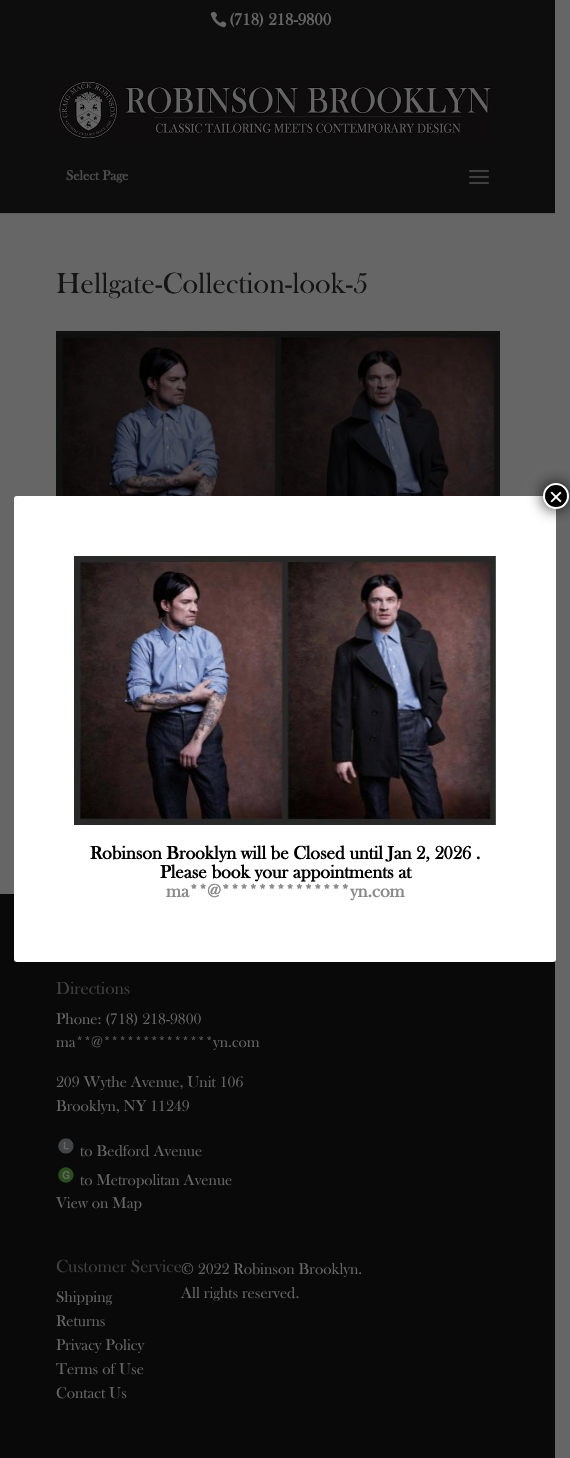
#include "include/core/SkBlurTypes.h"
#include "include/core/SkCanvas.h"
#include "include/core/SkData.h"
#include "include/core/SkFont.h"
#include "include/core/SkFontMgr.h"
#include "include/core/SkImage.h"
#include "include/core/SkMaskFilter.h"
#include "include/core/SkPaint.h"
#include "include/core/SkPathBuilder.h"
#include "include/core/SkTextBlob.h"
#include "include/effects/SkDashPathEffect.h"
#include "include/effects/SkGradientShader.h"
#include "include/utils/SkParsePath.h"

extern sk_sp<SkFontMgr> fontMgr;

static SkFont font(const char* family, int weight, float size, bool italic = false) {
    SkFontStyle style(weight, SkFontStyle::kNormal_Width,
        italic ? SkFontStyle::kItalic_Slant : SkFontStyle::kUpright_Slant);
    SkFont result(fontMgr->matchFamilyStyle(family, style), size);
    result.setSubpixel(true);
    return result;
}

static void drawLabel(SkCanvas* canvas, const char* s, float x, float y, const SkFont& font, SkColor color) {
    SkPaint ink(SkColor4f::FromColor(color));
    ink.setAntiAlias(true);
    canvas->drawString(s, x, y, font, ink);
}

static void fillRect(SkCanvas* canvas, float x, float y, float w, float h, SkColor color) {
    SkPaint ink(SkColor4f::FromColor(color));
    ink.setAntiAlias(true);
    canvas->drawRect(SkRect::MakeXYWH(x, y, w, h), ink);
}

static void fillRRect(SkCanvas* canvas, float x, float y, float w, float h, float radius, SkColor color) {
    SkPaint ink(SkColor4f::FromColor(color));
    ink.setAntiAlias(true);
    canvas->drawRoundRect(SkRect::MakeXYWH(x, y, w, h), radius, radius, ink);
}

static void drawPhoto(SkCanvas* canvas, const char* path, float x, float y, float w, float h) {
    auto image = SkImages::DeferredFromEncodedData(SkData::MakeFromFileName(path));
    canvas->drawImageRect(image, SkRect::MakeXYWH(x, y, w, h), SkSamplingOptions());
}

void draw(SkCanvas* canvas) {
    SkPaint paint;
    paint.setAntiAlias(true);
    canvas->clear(0xFF666666);
    fillRect(canvas, 0, 0, 555, 213, 0xFF0D0D0D);
    drawPhoto(canvas, "assets/img1.png", 210, 11, 17, 17);
    SkFont font1 = font("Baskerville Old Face", 700, 17);
    drawLabel(canvas, "(718) 218-9800", 229, 25, font1, 0xFF666666);
    fillRect(canvas, 0, 213, 555, 1, 0xFF5C5C5C);
    drawPhoto(canvas, "assets/img2.png", 57, 80, 435, 59);
    SkFont font2 = font("Baskerville Old Face", 700, 14);
    drawLabel(canvas, "Select Page", 66, 180, font2, 0xFF4B4B4B);
    drawPhoto(canvas, "assets/img3.png", 469, 170, 20, 14);
    SkFont font3 = font("Baskerville Old Face", 400, 30);
    drawLabel(canvas, "Hellgate-Collection-look-5", 56, 293, font3, 0xFF141414);
    drawPhoto(canvas, "assets/img4.png", 56, 331, 444, 165);
    fillRect(canvas, 0, 894, 555, 564, 0xFF090909);
    SkFont font4 = font("Baskerville Old Face", 400, 18);
    drawLabel(canvas, "Directions", 56, 994, font4, 0xFF404040);
    SkFont font5 = font("Baskerville Old Face", 400, 16);
    drawLabel(canvas, "Phone: (718) 218-9800", 56, 1024, font5, 0xFF666666);
    drawLabel(canvas, "ma**", 56, 1047, font5, 0xFF666666);
    drawLabel(canvas, "@**************", 91, 1047, font5, 0xFF666666);
    drawLabel(canvas, "yn.com", 213, 1047, font5, 0xFF666666);
    drawLabel(canvas, "209 Wythe Avenue, Unit 106", 56, 1087, font5, 0xFF666666);
    drawLabel(canvas, "Brooklyn, NY 11249", 56, 1111, font5, 0xFF666666);
    drawPhoto(canvas, "assets/img5.png", 58, 1138, 16, 16);
    drawLabel(canvas, "to Bedford Avenue", 80, 1156, font5, 0xFF666666);
    drawPhoto(canvas, "assets/img6.png", 58, 1167, 16, 16);
    drawLabel(canvas, "to Metropolitan Avenue", 80, 1185, font5, 0xFF666666);
    drawLabel(canvas, "View on Map", 56, 1208, font5, 0xFF666666);
    drawLabel(canvas, "Customer Service", 56, 1272, font4, 0xFF404040);
    drawLabel(canvas, "Shipping", 56, 1302, font5, 0xFF666666);
    drawLabel(canvas, "Returns", 56, 1326, font5, 0xFF666666);
    drawLabel(canvas, "Privacy Policy", 56, 1350, font5, 0xFF666666);
    drawLabel(canvas, "Terms of Use", 56, 1374, font5, 0xFF666666);
    drawLabel(canvas, "Contact Us", 56, 1398, font5, 0xFF666666);
    drawLabel(canvas, "© 2022 Robinson Brooklyn.", 181, 1274, font5, 0xFF666666);
    drawLabel(canvas, "All rights reserved.", 181, 1298, font5, 0xFF666666);
    fillRRect(canvas, 14, 496, 542, 466, 3, 0xFFFFFFFF);
    paint.setColor(0xBF020202);
    paint.setMaskFilter(SkMaskFilter::MakeBlur(kNormal_SkBlurStyle, 7.5f));
    canvas->drawRoundRect(SkRect::MakeXYWH(542, 482, 28, 28), 14, 14, paint);
    paint.setMaskFilter(nullptr);
    paint.setColor(0xFF000000);
    canvas->drawCircle(556, 496, 12, paint);
    paint.setStroke(true);
    paint.setStrokeWidth(2);
    paint.setColor(0xFFFFFFFF);
    canvas->drawCircle(556, 496, 12, paint);
    SkFont font6 = font("Liberation Sans", 400, 24);
    drawLabel(canvas, "×", 549, 505, font6, 0xFFFFFFFF);
    drawPhoto(canvas, "assets/img7.png", 74, 556, 422, 269);
    SkFont font7 = font("Baskerville Old Face", 700, 18.7f);
    drawLabel(canvas, "Robinson Brooklyn will be Closed until Jan 2, 2026 .", 90, 859, font7, 0xFF000000);
    drawLabel(canvas, "Please book your appointments at", 160, 878, font7, 0xFF000000);
    drawLabel(canvas, "ma**", 166, 897, font7, 0xFF898989);
    drawLabel(canvas, "@**************", 207, 897, font7, 0xFF898989);
    drawLabel(canvas, "yn.com", 350, 897, font7, 0xFF898989);
}
